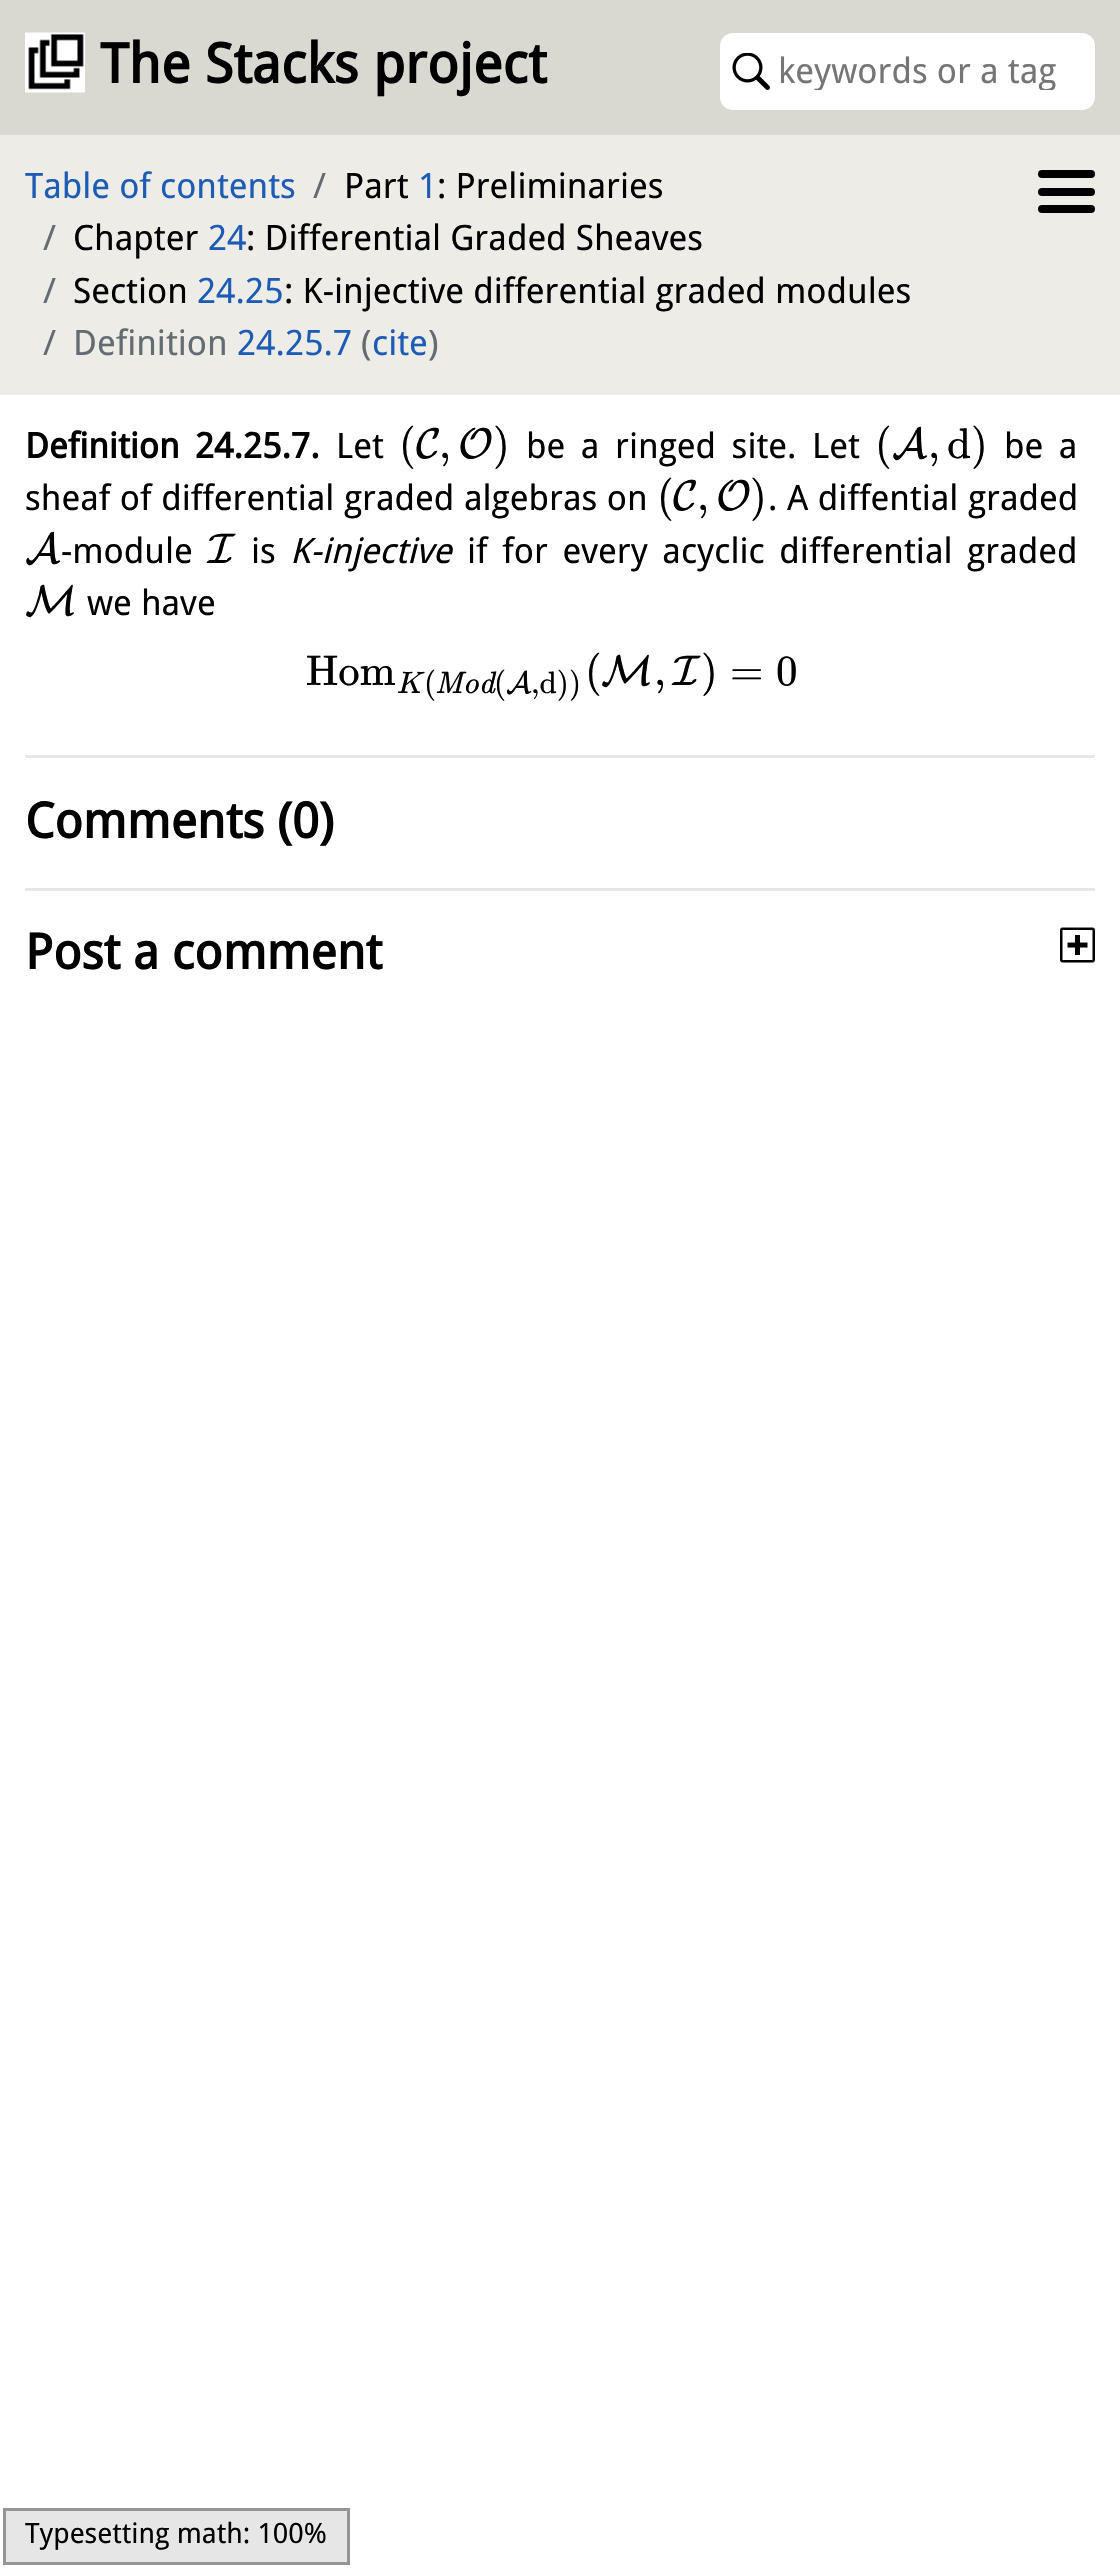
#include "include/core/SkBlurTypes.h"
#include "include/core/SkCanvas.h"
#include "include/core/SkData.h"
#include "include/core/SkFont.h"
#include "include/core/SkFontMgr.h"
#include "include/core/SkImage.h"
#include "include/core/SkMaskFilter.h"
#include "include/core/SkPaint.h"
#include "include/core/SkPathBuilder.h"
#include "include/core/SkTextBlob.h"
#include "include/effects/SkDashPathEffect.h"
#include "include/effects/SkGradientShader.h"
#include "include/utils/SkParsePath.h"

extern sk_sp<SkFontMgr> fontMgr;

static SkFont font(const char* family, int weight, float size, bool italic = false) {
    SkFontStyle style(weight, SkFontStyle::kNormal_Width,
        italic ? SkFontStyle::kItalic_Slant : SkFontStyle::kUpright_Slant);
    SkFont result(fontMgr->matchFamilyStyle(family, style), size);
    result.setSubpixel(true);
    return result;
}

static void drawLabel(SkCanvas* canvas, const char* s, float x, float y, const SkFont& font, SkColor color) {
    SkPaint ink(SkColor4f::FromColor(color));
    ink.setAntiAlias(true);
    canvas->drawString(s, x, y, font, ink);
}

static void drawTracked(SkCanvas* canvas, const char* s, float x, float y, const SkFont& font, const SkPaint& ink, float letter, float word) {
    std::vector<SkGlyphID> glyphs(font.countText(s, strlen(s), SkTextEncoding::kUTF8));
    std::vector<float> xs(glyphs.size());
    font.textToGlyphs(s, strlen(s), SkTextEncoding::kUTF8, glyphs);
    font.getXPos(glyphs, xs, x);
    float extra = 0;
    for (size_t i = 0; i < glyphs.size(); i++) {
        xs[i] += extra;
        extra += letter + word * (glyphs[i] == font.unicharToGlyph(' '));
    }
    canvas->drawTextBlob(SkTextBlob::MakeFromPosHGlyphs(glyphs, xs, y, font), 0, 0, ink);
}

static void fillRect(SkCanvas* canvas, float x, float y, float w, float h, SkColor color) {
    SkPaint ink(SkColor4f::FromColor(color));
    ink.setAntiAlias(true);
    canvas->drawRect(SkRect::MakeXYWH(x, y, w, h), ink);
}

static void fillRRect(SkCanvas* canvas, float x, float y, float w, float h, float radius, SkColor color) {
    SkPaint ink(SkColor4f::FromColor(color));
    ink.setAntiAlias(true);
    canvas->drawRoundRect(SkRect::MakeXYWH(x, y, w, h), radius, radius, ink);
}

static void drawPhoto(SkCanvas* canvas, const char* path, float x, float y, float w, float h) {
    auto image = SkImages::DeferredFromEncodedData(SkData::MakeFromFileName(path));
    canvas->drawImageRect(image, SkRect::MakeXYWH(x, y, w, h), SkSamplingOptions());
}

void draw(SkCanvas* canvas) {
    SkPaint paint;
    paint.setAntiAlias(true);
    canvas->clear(0xFFFFFFFF);
    fillRect(canvas, 0, 0, 1120, 135, 0xFFD9D8D1);
    drawPhoto(canvas, "assets/img1.png", 25, 32, 60, 61);
    SkFont font1 = font("Droid Sans", 700, 55);
    drawLabel(canvas, "The Stacks project", 100, 83, font1, 0xFF000000);
    fillRRect(canvas, 720, 33, 375, 77, 13, 0xFFFFFFFF);
    drawPhoto(canvas, "assets/img2.png", 732, 53, 38, 37);
    canvas->save();
    canvas->clipRect(SkRect::MakeXYWH(778, 50, 302, 40));
    SkFont font2 = font("Droid Sans", 400, 35);
    drawLabel(canvas, "keywords or a tag", 778, 83, font2, 0xFF757575);
    canvas->restore();
    fillRect(canvas, 0, 135, 1120, 260, 0xFFEDECE6);
    drawLabel(canvas, "Table of contents", 25, 198, font2, 0xFF1D5CB4);
    drawLabel(canvas, "/", 313, 198, font2, 0xFF636C72);
    drawLabel(canvas, "Part", 344, 198, font2, 0xFF000000);
    drawLabel(canvas, "1", 418, 198, font2, 0xFF1D5CB4);
    drawLabel(canvas, ": Preliminaries", 437, 198, font2, 0xFF000000);
    drawLabel(canvas, "/", 43, 250, font2, 0xFF636C72);
    drawLabel(canvas, "Chapter", 73, 250, font2, 0xFF000000);
    drawLabel(canvas, "24", 208, 250, font2, 0xFF1D5CB4);
    drawLabel(canvas, ": Differential Graded Sheaves", 246, 250, font2, 0xFF000000);
    drawLabel(canvas, "/", 43, 303, font2, 0xFF636C72);
    drawLabel(canvas, "Section", 73, 303, font2, 0xFF000000);
    drawLabel(canvas, "24.25", 197, 303, font2, 0xFF1D5CB4);
    drawLabel(canvas, ": K-injective differential graded modules", 284, 303, font2, 0xFF000000);
    drawLabel(canvas, "/", 43, 355, font2, 0xFF636C72);
    drawLabel(canvas, "Definition", 73, 355, font2, 0xFF636C72);
    drawLabel(canvas, "24.25.7", 237, 355, font2, 0xFF1D5CB4);
    drawLabel(canvas, "(", 361, 355, font2, 0xFF636C72);
    drawLabel(canvas, "cite", 372, 355, font2, 0xFF1D5CB4);
    drawLabel(canvas, ")", 428, 355, font2, 0xFF636C72);
    fillRRect(canvas, 1038, 170, 57, 8, 4, 0xFF000000);
    fillRRect(canvas, 1038, 188, 57, 8, 4, 0xFF000000);
    fillRRect(canvas, 1038, 205, 57, 8, 4, 0xFF000000);
    SkFont font3 = font("Droid Sans", 700, 35);
    drawLabel(canvas, "Definition", 25, 458, font3, 0xFF000000);
    drawLabel(canvas, "24.25.7.", 195, 458, font3, 0xFF000000);
    drawLabel(canvas, "Let", 336, 458, font2, 0xFF000000);
    SkFont font4 = font("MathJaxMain", 400, 43);
    drawLabel(canvas, "(", 399, 458, font4, 0xFF000000);
    SkFont font5 = font("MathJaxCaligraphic", 400, 43);
    drawLabel(canvas, "C", 416, 458, font5, 0xFF000000);
    drawLabel(canvas, ",", 439, 458, font4, 0xFF000000);
    drawLabel(canvas, "O", 458, 458, font5, 0xFF000000);
    drawLabel(canvas, ")", 493, 458, font4, 0xFF000000);
    paint.setColor(0xFF000000);
    drawTracked(canvas, "be a ringed site. Let", 526, 458, font2, paint, 0, 6.5f);
    drawLabel(canvas, "(", 875, 458, font4, 0xFF000000);
    drawLabel(canvas, "A", 892, 458, font5, 0xFF000000);
    drawLabel(canvas, ",", 928, 458, font4, 0xFF000000);
    drawLabel(canvas, "d)", 947, 458, font4, 0xFF000000);
    drawTracked(canvas, "be a", 1004, 458, font2, paint, 0, 6.5f);
    drawTracked(canvas, "sheaf of differential graded algebras on", 25, 510, font2, paint, 0, 0.5f);
    drawLabel(canvas, "(", 657, 510, font4, 0xFF000000);
    drawLabel(canvas, "C", 673, 510, font5, 0xFF000000);
    drawLabel(canvas, ",", 697, 510, font4, 0xFF000000);
    drawLabel(canvas, "O", 716, 510, font5, 0xFF000000);
    drawLabel(canvas, ")", 750, 510, font4, 0xFF000000);
    drawTracked(canvas, ". A diffential graded", 768, 510, font2, paint, 0, 0.5f);
    drawLabel(canvas, "A", 25, 563, font5, 0xFF000000);
    drawLabel(canvas, "-module", 61, 563, font2, 0xFF000000);
    drawLabel(canvas, "I", 208, 563, font5, 0xFF000000);
    drawLabel(canvas, "is", 251, 563, font2, 0xFF000000);
    SkFont font6 = font("Droid Sans", 400, 35, true);
    drawLabel(canvas, "K-injective", 290, 563, font6, 0xFF000000);
    drawTracked(canvas, "if for every acyclic differential graded", 467, 563, font2, paint, 0, 5.5f);
    drawLabel(canvas, "M", 25, 615, font5, 0xFF000000);
    drawLabel(canvas, "we have", 87, 615, font2, 0xFF000000);
    drawLabel(canvas, "Hom", 306, 685, font4, 0xFF000000);
    SkFont font7 = font("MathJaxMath", 400, 31, true);
    drawLabel(canvas, "K", 397, 693, font7, 0xFF000000);
    SkFont font8 = font("MathJaxMain", 400, 31);
    drawLabel(canvas, "(", 424, 693, font8, 0xFF000000);
    SkFont font9 = font("MathJaxMain", 400, 31, true);
    drawLabel(canvas, "Mod", 435, 693, font9, 0xFF000000);
    drawLabel(canvas, "(", 494, 693, font8, 0xFF000000);
    SkFont font10 = font("MathJaxCaligraphic", 400, 31);
    drawLabel(canvas, "A", 506, 693, font10, 0xFF000000);
    drawLabel(canvas, ",d))", 531, 693, font8, 0xFF000000);
    drawLabel(canvas, "(", 585, 685, font4, 0xFF000000);
    drawLabel(canvas, "M", 601, 685, font5, 0xFF000000);
    drawLabel(canvas, "I", 673, 685, font5, 0xFF000000);
    drawLabel(canvas, ")", 701, 685, font4, 0xFF000000);
    drawLabel(canvas, "=", 730, 685, font4, 0xFF000000);
    drawLabel(canvas, "0", 776, 685, font4, 0xFF000000);
    drawLabel(canvas, ",", 654, 685, font4, 0xFF000000);
    fillRect(canvas, 25, 755, 1070, 3, 0xFFE6E6E6);
    SkFont font11 = font("Droid Sans", 700, 49);
    drawLabel(canvas, "Comments (0)", 25, 838, font11, 0xFF000000);
    fillRect(canvas, 25, 888, 1070, 3, 0xFFE6E6E6);
    drawPhoto(canvas, "assets/img3.png", 1060, 927, 35, 36);
    drawLabel(canvas, "Post a comment", 25, 969, font11, 0xFF000000);
    paint.setColor(0xFFE6E6E6);
    canvas->drawRect(SkRect::MakeXYWH(4.5f, 2509.5f, 344, 54), paint);
    paint.setStroke(true);
    paint.setStrokeWidth(3);
    paint.setColor(0xFF959595);
    canvas->drawRect(SkRect::MakeXYWH(4.5f, 2509.5f, 344, 54), paint);
    SkFont font12 = font("Droid Sans", 400, 28);
    drawLabel(canvas, "Typesetting math: 100%", 25, 2543, font12, 0xFF000000);
}
